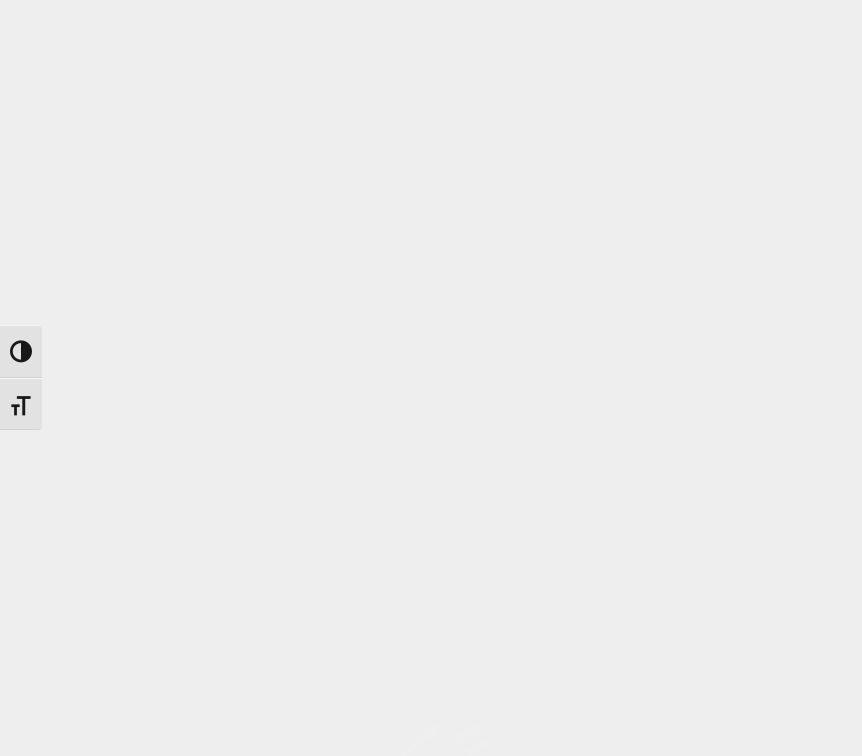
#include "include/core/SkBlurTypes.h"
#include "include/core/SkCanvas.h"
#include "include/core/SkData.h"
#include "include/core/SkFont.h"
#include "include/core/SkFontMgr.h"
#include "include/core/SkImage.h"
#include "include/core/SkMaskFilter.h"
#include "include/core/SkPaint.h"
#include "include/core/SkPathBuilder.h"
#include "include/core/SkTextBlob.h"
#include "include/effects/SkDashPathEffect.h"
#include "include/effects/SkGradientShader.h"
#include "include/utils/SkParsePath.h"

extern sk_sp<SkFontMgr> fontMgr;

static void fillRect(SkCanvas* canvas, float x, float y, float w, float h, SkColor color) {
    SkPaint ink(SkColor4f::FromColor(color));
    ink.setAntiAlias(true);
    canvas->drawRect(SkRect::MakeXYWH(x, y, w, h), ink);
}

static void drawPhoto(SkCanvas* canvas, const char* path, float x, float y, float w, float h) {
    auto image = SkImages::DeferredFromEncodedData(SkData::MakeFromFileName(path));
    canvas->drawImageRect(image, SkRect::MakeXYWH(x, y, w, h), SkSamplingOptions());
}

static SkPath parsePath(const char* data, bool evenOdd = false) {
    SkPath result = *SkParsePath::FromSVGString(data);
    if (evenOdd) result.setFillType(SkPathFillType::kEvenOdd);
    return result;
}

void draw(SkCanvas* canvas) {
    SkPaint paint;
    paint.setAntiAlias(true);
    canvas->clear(0xFFEEEEEE);
    drawPhoto(canvas, "assets/img1.png", 73, 2, 326, 105);
    drawPhoto(canvas, "assets/img2.png", 106, 152, 10, 13);
    drawPhoto(canvas, "assets/img3.png", 339, 154, 12, 10);
    drawPhoto(canvas, "assets/img4.png", 500, 193, 80, 72);
    paint.setColor(0xFFE2E2E2);
    canvas->drawPath(parsePath("M0 325H38C40 325 42 327 42 329V378H0Z"), paint);
    paint.setColor(0xFFF5F5F5);
    canvas->drawPath(parsePath("M0 325V326H38C40 326 42 327 42 329C42 327 40 325 38 325Z"), paint);
    fillRect(canvas, 0, 377, 42, 1, 0xFFD2D2D2);
    drawPhoto(canvas, "assets/img5.png", 10, 340, 22, 23);
    paint.setColor(0xFFE2E2E2);
    canvas->drawPath(parsePath("M0 378H42V426C42 428 40 430 38 430H0Z"), paint);
    fillRect(canvas, 0, 378, 42, 1, 0xFFF5F5F5);
    paint.setColor(0xFFD2D2D2);
    canvas->drawPath(parsePath("M0 429V430H38C40 430 42 428 42 426C42 428 40 429 38 429Z"), paint);
    drawPhoto(canvas, "assets/img6.png", 11, 396, 20, 20);
    drawPhoto(canvas, "assets/img7.png", 786, 319, 20, 17);
    drawPhoto(canvas, "assets/img8.png", 114, 607, 6, 10);
    drawPhoto(canvas, "assets/img8.png", 164, 607, 6, 10);
    drawPhoto(canvas, "assets/img9.png", 392, 718, 107, 38);
}
